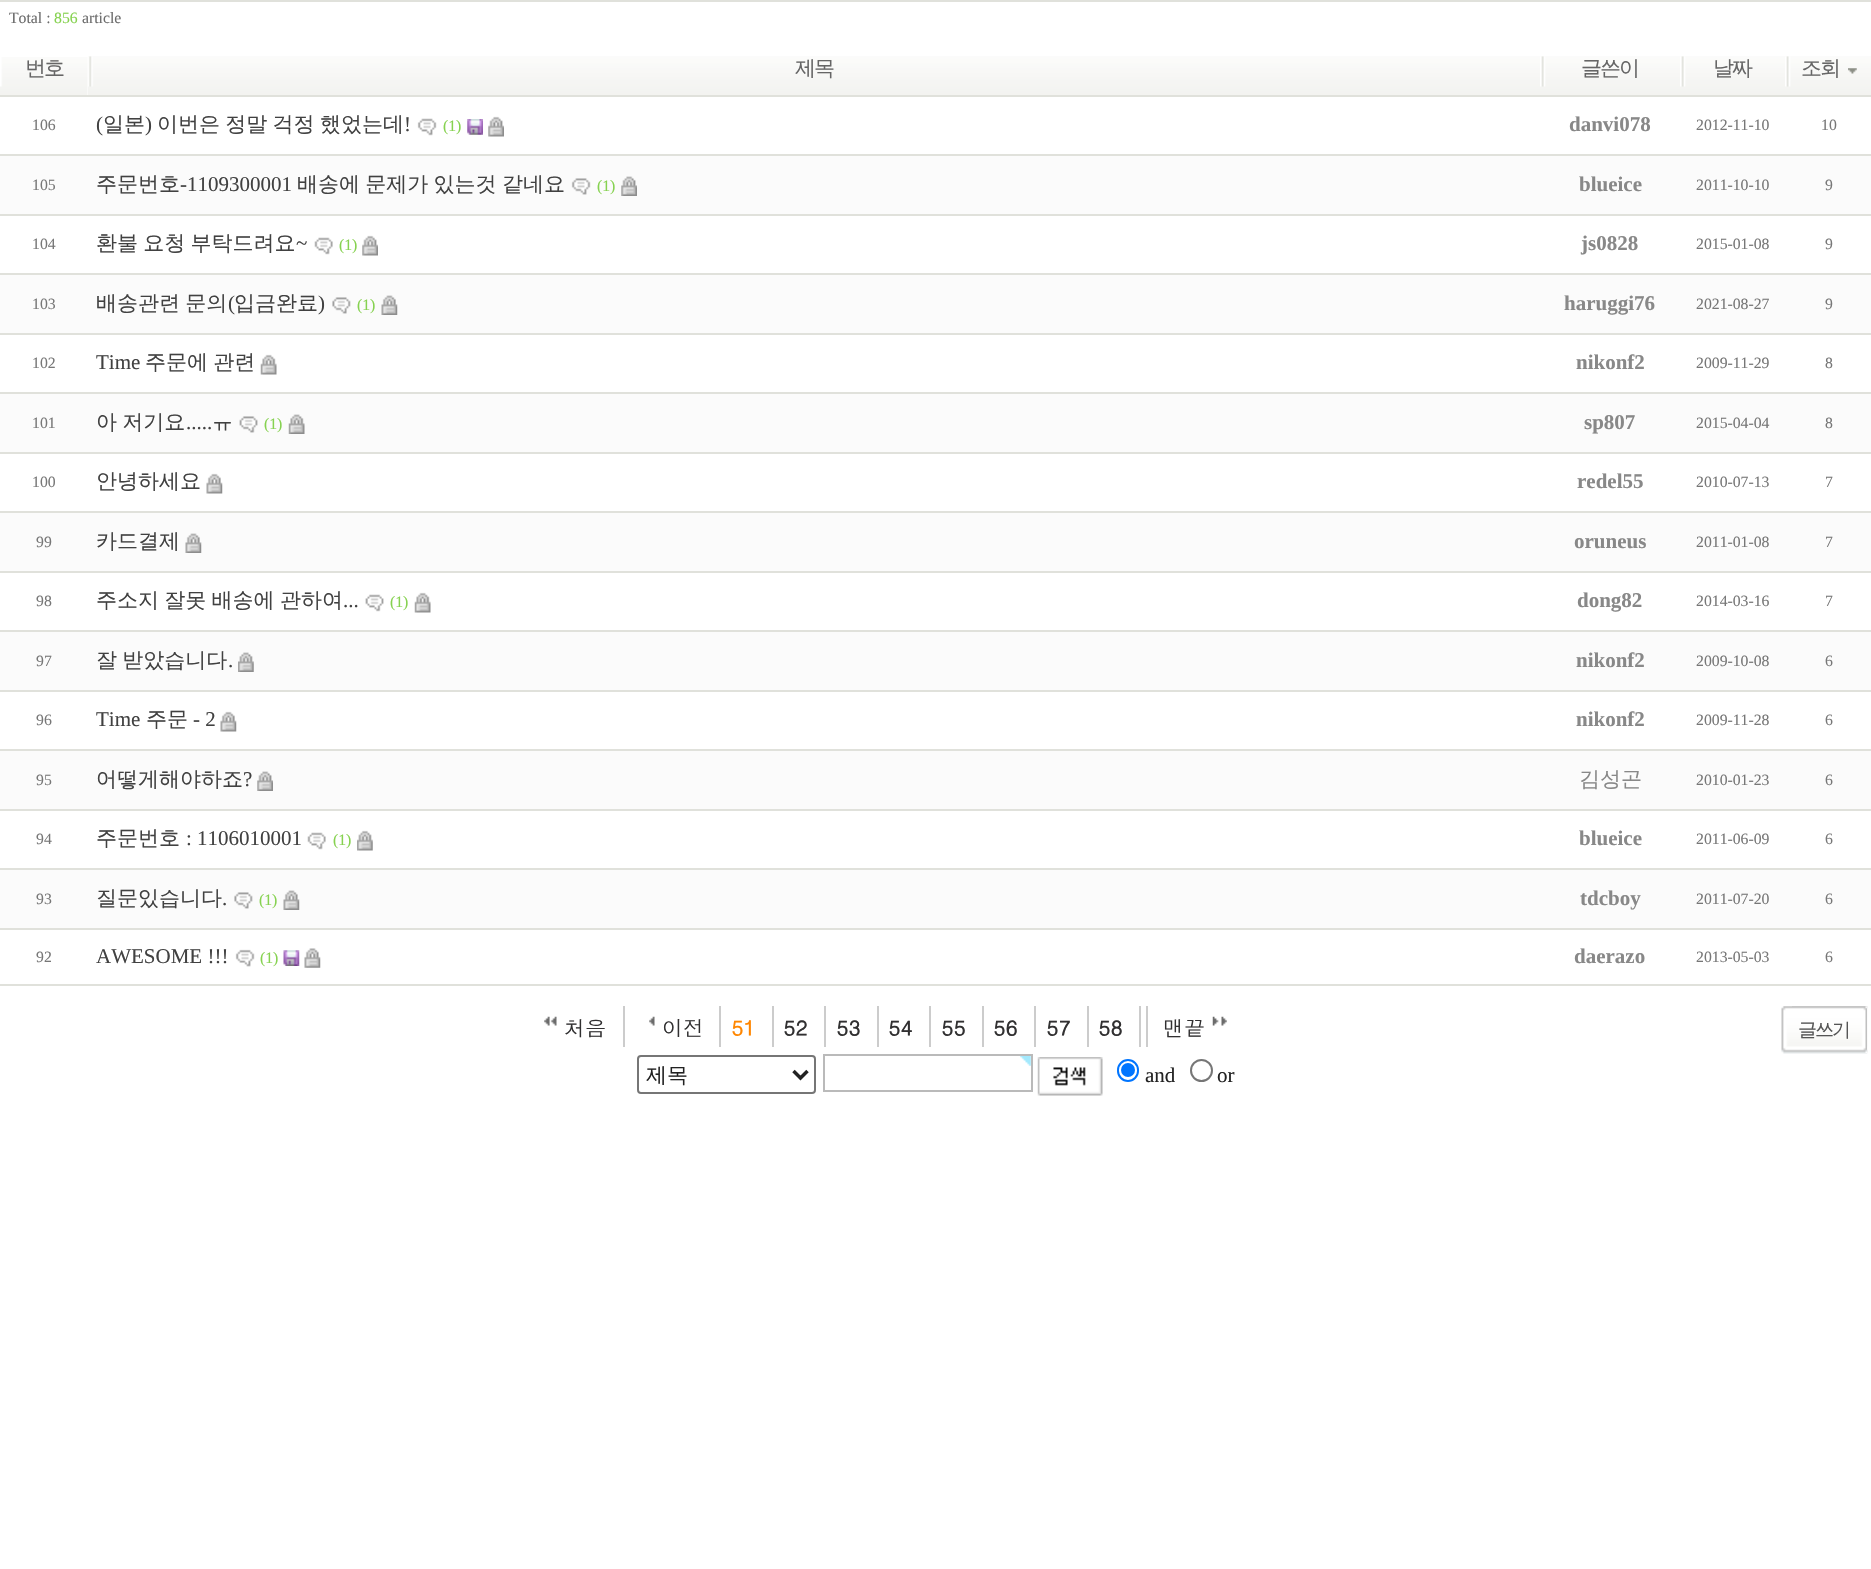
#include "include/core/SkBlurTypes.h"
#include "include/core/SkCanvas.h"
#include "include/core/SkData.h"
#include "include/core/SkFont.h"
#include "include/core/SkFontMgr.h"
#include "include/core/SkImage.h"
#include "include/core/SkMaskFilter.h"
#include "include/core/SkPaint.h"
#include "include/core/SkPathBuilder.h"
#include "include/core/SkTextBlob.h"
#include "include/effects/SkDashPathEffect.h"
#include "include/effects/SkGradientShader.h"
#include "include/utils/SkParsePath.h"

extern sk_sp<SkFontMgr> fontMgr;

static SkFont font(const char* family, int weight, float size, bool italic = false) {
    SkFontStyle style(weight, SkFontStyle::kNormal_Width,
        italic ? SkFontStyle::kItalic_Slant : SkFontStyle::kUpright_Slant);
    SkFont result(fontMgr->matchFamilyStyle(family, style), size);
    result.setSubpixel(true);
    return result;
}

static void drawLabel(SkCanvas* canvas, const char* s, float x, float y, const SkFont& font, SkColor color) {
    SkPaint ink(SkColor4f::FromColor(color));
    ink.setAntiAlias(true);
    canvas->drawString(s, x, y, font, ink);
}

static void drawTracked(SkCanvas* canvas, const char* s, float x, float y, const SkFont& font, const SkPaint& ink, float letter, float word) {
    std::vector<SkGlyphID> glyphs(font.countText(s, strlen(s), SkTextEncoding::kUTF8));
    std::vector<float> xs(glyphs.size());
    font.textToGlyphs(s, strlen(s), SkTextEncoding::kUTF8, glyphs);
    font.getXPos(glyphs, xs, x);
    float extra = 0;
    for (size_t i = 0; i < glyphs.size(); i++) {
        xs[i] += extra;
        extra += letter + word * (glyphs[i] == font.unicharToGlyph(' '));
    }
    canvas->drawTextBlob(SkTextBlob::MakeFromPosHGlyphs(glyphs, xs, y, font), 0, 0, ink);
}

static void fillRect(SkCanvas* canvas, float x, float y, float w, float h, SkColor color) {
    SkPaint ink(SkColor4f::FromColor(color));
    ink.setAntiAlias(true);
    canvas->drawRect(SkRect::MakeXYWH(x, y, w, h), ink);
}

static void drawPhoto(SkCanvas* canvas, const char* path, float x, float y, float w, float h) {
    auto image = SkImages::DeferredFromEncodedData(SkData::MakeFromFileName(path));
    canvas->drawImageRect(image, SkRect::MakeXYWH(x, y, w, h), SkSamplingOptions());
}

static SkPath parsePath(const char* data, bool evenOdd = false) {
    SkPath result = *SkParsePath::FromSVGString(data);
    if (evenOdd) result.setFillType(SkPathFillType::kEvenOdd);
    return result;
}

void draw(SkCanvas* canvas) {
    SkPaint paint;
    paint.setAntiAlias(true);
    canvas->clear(0xFFFFFFFF);
    fillRect(canvas, 0, 0, 1871, 2, 0xFFE0E1DB);
    fillRect(canvas, 0, 984, 1871, 2, 0xFFE0E1DB);
    SkFont font1 = font("Liberation Serif", 400, 15.75f);
    drawLabel(canvas, "Total :", 9, 23, font1, 0xFF6C6C6C);
    drawLabel(canvas, "856", 54, 23, font1, 0xFF86D250);
    drawLabel(canvas, "article", 82, 23, font1, 0xFF6C6C6C);
    drawPhoto(canvas, "assets/img1.png", 0, 57, 88, 38);
    SkFont font2 = font("WenQuanYi Zen Hei", 500, 21);
    paint.setColor(0xFF666666);
    drawTracked(canvas, "번호", 25, 75, font2, paint, -2, 0);
    drawPhoto(canvas, "assets/img2.png", 88, 56, 1452, 39);
    drawTracked(canvas, "제목", 795, 75, font2, paint, -2, 0);
    drawPhoto(canvas, "assets/img3.png", 1540, 56, 140, 39);
    drawTracked(canvas, "글쓴이", 1581, 75, font2, paint, -2, 0);
    drawPhoto(canvas, "assets/img4.png", 1680, 56, 105, 39);
    drawTracked(canvas, "날짜", 1713, 75, font2, paint, -2, 0);
    drawPhoto(canvas, "assets/img5.png", 1785, 56, 86, 39);
    drawTracked(canvas, "조회", 1801, 75, font2, paint, -2, 0);
    drawPhoto(canvas, "assets/img6.png", 1848, 68, 9, 6);
    drawLabel(canvas, "106", 32, 130, font1, 0xFF777777);
    SkFont font3 = font("Liberation Serif", 400, 21);
    drawLabel(canvas, "(", 96, 131, font3, 0xFF414141);
    drawLabel(canvas, "일본", 103, 131, font2, 0xFF414141);
    drawLabel(canvas, ")", 145, 131, font3, 0xFF414141);
    paint.setColor(0xFF414141);
    drawTracked(canvas, "이번은 정말 걱정 했었는데", 157, 131, font2, paint, 0, -1);
    drawLabel(canvas, "!", 404, 131, font3, 0xFF414141);
    drawPhoto(canvas, "assets/img7.png", 417, 118, 20, 18);
    drawLabel(canvas, "(1)", 443, 131, font1, 0xFF86D250);
    drawPhoto(canvas, "assets/img8.png", 467, 119, 16, 16);
    drawPhoto(canvas, "assets/img9.png", 488, 116, 16, 21);
    SkFont font4 = font("Liberation Serif", 700, 21);
    drawLabel(canvas, "danvi078", 1569, 131, font4, 0xFF888888);
    drawLabel(canvas, "2012-11-10", 1696, 130, font1, 0xFF777777);
    fillRect(canvas, 0, 95, 1871, 2, 0xFFE0E1DB);
    drawLabel(canvas, "10", 1821, 130, font1, 0xFF777777);
    fillRect(canvas, 0, 156, 1871, 58, 0xFFFBFBFB);
    drawLabel(canvas, "105", 32, 190, font1, 0xFF777777);
    drawLabel(canvas, "주문번호", 96, 191, font2, 0xFF414141);
    drawLabel(canvas, "-1109300001", 180, 191, font3, 0xFF414141);
    drawTracked(canvas, "배송에 문제가 있는것 같네요", 297, 191, font2, paint, 0, -1);
    drawPhoto(canvas, "assets/img10.png", 571, 178, 20, 17);
    drawLabel(canvas, "(1)", 597, 191, font1, 0xFF86D250);
    drawPhoto(canvas, "assets/img11.png", 621, 176, 16, 20);
    drawLabel(canvas, "blueice", 1579, 191, font4, 0xFF888888);
    drawLabel(canvas, "2011-10-10", 1696, 190, font1, 0xFF777777);
    fillRect(canvas, 0, 154, 1871, 2, 0xFFE0E1DB);
    drawLabel(canvas, "9", 1825, 190, font1, 0xFF777777);
    drawLabel(canvas, "104", 32, 249, font1, 0xFF777777);
    drawTracked(canvas, "환불 요청 부탁드려요", 96, 250, font2, paint, 0, -1);
    drawLabel(canvas, "~", 296, 250, font3, 0xFF414141);
    drawPhoto(canvas, "assets/img12.png", 314, 237, 19, 18);
    drawLabel(canvas, "(1)", 339, 250, font1, 0xFF86D250);
    drawPhoto(canvas, "assets/img13.png", 362, 235, 16, 21);
    drawLabel(canvas, "js0828", 1581, 250, font4, 0xFF888888);
    drawLabel(canvas, "2015-01-08", 1696, 249, font1, 0xFF777777);
    fillRect(canvas, 0, 214, 1871, 2, 0xFFE0E1DB);
    drawLabel(canvas, "9", 1825, 249, font1, 0xFF777777);
    fillRect(canvas, 0, 275, 1871, 58, 0xFFFBFBFB);
    drawLabel(canvas, "103", 32, 309, font1, 0xFF777777);
    drawTracked(canvas, "배송관련 문의", 96, 310, font2, paint, 0, -1);
    drawLabel(canvas, "(", 228, 310, font3, 0xFF414141);
    drawLabel(canvas, "입금완료", 234, 310, font2, 0xFF414141);
    drawLabel(canvas, ")", 318, 310, font3, 0xFF414141);
    drawPhoto(canvas, "assets/img14.png", 332, 297, 19, 17);
    drawLabel(canvas, "(1)", 357, 310, font1, 0xFF86D250);
    drawPhoto(canvas, "assets/img15.png", 381, 295, 17, 20);
    drawLabel(canvas, "haruggi76", 1564, 310, font4, 0xFF888888);
    drawLabel(canvas, "2021-08-27", 1696, 309, font1, 0xFF777777);
    fillRect(canvas, 0, 273, 1871, 2, 0xFFE0E1DB);
    drawLabel(canvas, "9", 1825, 309, font1, 0xFF777777);
    drawLabel(canvas, "102", 32, 368, font1, 0xFF777777);
    drawLabel(canvas, "Time", 96, 369, font3, 0xFF414141);
    drawTracked(canvas, "주문에 관련", 145, 369, font2, paint, 0, -1);
    drawPhoto(canvas, "assets/img16.png", 260, 354, 17, 21);
    drawLabel(canvas, "nikonf2", 1576, 369, font4, 0xFF888888);
    drawLabel(canvas, "2009-11-29", 1696, 368, font1, 0xFF777777);
    fillRect(canvas, 0, 333, 1871, 2, 0xFFE0E1DB);
    drawLabel(canvas, "8", 1825, 368, font1, 0xFF777777);
    fillRect(canvas, 0, 394, 1871, 58, 0xFFFBFBFB);
    drawLabel(canvas, "101", 32, 428, font1, 0xFF777777);
    drawTracked(canvas, "아 저기요", 96, 429, font2, paint, 0, -1);
    drawLabel(canvas, ".....", 186, 429, font3, 0xFF414141);
    drawLabel(canvas, "ㅠ", 212, 429, font2, 0xFF414141);
    drawPhoto(canvas, "assets/img17.png", 239, 416, 19, 17);
    drawLabel(canvas, "(1)", 264, 429, font1, 0xFF86D250);
    drawPhoto(canvas, "assets/img18.png", 288, 414, 17, 20);
    drawLabel(canvas, "sp807", 1584, 429, font4, 0xFF888888);
    drawLabel(canvas, "2015-04-04", 1696, 428, font1, 0xFF777777);
    fillRect(canvas, 0, 392, 1871, 2, 0xFFE0E1DB);
    drawLabel(canvas, "8", 1825, 428, font1, 0xFF777777);
    drawLabel(canvas, "100", 32, 487, font1, 0xFF777777);
    drawLabel(canvas, "안녕하세요", 96, 488, font2, 0xFF414141);
    drawPhoto(canvas, "assets/img19.png", 206, 473, 17, 21);
    drawLabel(canvas, "redel55", 1577, 488, font4, 0xFF888888);
    drawLabel(canvas, "2010-07-13", 1696, 487, font1, 0xFF777777);
    fillRect(canvas, 0, 452, 1871, 2, 0xFFE0E1DB);
    drawLabel(canvas, "7", 1825, 487, font1, 0xFF777777);
    fillRect(canvas, 0, 513, 1871, 58, 0xFFFBFBFB);
    drawLabel(canvas, "99", 36, 547, font1, 0xFF777777);
    drawLabel(canvas, "카드결제", 96, 548, font2, 0xFF414141);
    drawPhoto(canvas, "assets/img15.png", 185, 533, 17, 20);
    drawLabel(canvas, "oruneus", 1574, 548, font4, 0xFF888888);
    drawLabel(canvas, "2011-01-08", 1696, 547, font1, 0xFF777777);
    fillRect(canvas, 0, 511, 1871, 2, 0xFFE0E1DB);
    drawLabel(canvas, "7", 1825, 547, font1, 0xFF777777);
    drawLabel(canvas, "98", 36, 606, font1, 0xFF777777);
    drawTracked(canvas, "주소지 잘못 배송에 관하여", 96, 607, font2, paint, 0, -1);
    drawLabel(canvas, "...", 343, 607, font3, 0xFF414141);
    drawPhoto(canvas, "assets/img20.png", 365, 594, 19, 18);
    drawLabel(canvas, "(1)", 390, 607, font1, 0xFF86D250);
    drawPhoto(canvas, "assets/img16.png", 414, 592, 17, 21);
    drawLabel(canvas, "dong82", 1577, 607, font4, 0xFF888888);
    drawLabel(canvas, "2014-03-16", 1696, 606, font1, 0xFF777777);
    fillRect(canvas, 0, 571, 1871, 2, 0xFFE0E1DB);
    drawLabel(canvas, "7", 1825, 606, font1, 0xFF777777);
    fillRect(canvas, 0, 632, 1871, 58, 0xFFFBFBFB);
    drawLabel(canvas, "97", 36, 666, font1, 0xFF777777);
    drawTracked(canvas, "잘 받았습니다", 96, 667, font2, paint, 0, -1);
    drawLabel(canvas, ".", 228, 667, font3, 0xFF414141);
    drawPhoto(canvas, "assets/img21.png", 238, 652, 16, 20);
    drawLabel(canvas, "nikonf2", 1576, 667, font4, 0xFF888888);
    drawLabel(canvas, "2009-10-08", 1696, 666, font1, 0xFF777777);
    fillRect(canvas, 0, 630, 1871, 2, 0xFFE0E1DB);
    drawLabel(canvas, "6", 1825, 666, font1, 0xFF777777);
    drawLabel(canvas, "96", 36, 725, font1, 0xFF777777);
    drawLabel(canvas, "Time", 96, 726, font3, 0xFF414141);
    drawLabel(canvas, "주문", 146, 726, font2, 0xFF414141);
    drawLabel(canvas, "- 2", 193, 726, font3, 0xFF414141);
    drawPhoto(canvas, "assets/img19.png", 220, 711, 17, 21);
    drawLabel(canvas, "nikonf2", 1576, 726, font4, 0xFF888888);
    drawLabel(canvas, "2009-11-28", 1696, 725, font1, 0xFF777777);
    fillRect(canvas, 0, 690, 1871, 2, 0xFFE0E1DB);
    drawLabel(canvas, "6", 1825, 725, font1, 0xFF777777);
    fillRect(canvas, 0, 751, 1871, 58, 0xFFFBFBFB);
    drawLabel(canvas, "95", 36, 785, font1, 0xFF777777);
    drawLabel(canvas, "어떻게해야하죠", 96, 786, font2, 0xFF414141);
    drawLabel(canvas, "?", 243, 786, font3, 0xFF414141);
    drawPhoto(canvas, "assets/img11.png", 257, 771, 16, 20);
    drawLabel(canvas, "김성곤", 1579, 786, font2, 0xFF888888);
    drawLabel(canvas, "2010-01-23", 1696, 785, font1, 0xFF777777);
    fillRect(canvas, 0, 749, 1871, 2, 0xFFE0E1DB);
    drawLabel(canvas, "6", 1825, 785, font1, 0xFF777777);
    drawLabel(canvas, "94", 36, 844, font1, 0xFF777777);
    drawLabel(canvas, "주문번호", 96, 845, font2, 0xFF414141);
    drawLabel(canvas, ": 1106010001", 186, 845, font3, 0xFF414141);
    drawPhoto(canvas, "assets/img12.png", 307, 832, 19, 18);
    drawLabel(canvas, "(1)", 333, 845, font1, 0xFF86D250);
    drawPhoto(canvas, "assets/img22.png", 357, 830, 16, 21);
    drawLabel(canvas, "blueice", 1579, 845, font4, 0xFF888888);
    drawLabel(canvas, "2011-06-09", 1696, 844, font1, 0xFF777777);
    fillRect(canvas, 0, 809, 1871, 2, 0xFFE0E1DB);
    drawLabel(canvas, "6", 1825, 844, font1, 0xFF777777);
    fillRect(canvas, 0, 870, 1871, 58, 0xFFFBFBFB);
    drawLabel(canvas, "93", 36, 904, font1, 0xFF777777);
    drawLabel(canvas, "질문있습니다", 96, 905, font2, 0xFF414141);
    drawLabel(canvas, ".", 222, 905, font3, 0xFF414141);
    drawPhoto(canvas, "assets/img14.png", 234, 892, 19, 17);
    drawLabel(canvas, "(1)", 259, 905, font1, 0xFF86D250);
    drawPhoto(canvas, "assets/img23.png", 283, 890, 17, 20);
    drawLabel(canvas, "tdcboy", 1580, 905, font4, 0xFF888888);
    drawLabel(canvas, "2011-07-20", 1696, 904, font1, 0xFF777777);
    fillRect(canvas, 0, 868, 1871, 2, 0xFFE0E1DB);
    drawLabel(canvas, "6", 1825, 904, font1, 0xFF777777);
    drawLabel(canvas, "92", 36, 962, font1, 0xFF777777);
    drawLabel(canvas, "AWESOME !!!", 96, 963, font3, 0xFF414141);
    drawPhoto(canvas, "assets/img24.png", 235, 949, 20, 18);
    drawLabel(canvas, "(1)", 260, 963, font1, 0xFF86D250);
    drawPhoto(canvas, "assets/img25.png", 283, 950, 17, 16);
    drawPhoto(canvas, "assets/img26.png", 304, 948, 17, 20);
    drawLabel(canvas, "daerazo", 1574, 963, font4, 0xFF888888);
    drawLabel(canvas, "2013-05-03", 1696, 962, font1, 0xFF777777);
    fillRect(canvas, 0, 928, 1871, 2, 0xFFE0E1DB);
    drawLabel(canvas, "6", 1825, 962, font1, 0xFF777777);
    drawPhoto(canvas, "assets/img27.png", 544, 1016, 13, 10);
    fillRect(canvas, 623, 1006, 2, 41, 0xFFCCCCCC);
    SkFont font5 = font("Dotum", 400, 21);
    drawLabel(canvas, "처음", 564, 1036, font5, 0xFF313031);
    drawPhoto(canvas, "assets/img28.png", 649, 1016, 6, 10);
    drawLabel(canvas, "이전", 662, 1036, font5, 0xFF313031);
    fillRect(canvas, 719, 1006, 2, 41, 0xFFCCCCCC);
    SkFont font6 = font("Dotum", 700, 21);
    drawLabel(canvas, "51", 731, 1036, font6, 0xFFFF8600);
    fillRect(canvas, 772, 1006, 2, 41, 0xFFCCCCCC);
    drawLabel(canvas, "52", 783, 1036, font6, 0xFF313031);
    fillRect(canvas, 824, 1006, 2, 41, 0xFFCCCCCC);
    drawLabel(canvas, "53", 836, 1036, font6, 0xFF313031);
    fillRect(canvas, 877, 1006, 2, 41, 0xFFCCCCCC);
    drawLabel(canvas, "54", 888, 1036, font6, 0xFF313031);
    fillRect(canvas, 929, 1006, 2, 41, 0xFFCCCCCC);
    drawLabel(canvas, "55", 941, 1036, font6, 0xFF313031);
    fillRect(canvas, 982, 1006, 2, 41, 0xFFCCCCCC);
    drawLabel(canvas, "56", 993, 1036, font6, 0xFF313031);
    fillRect(canvas, 1034, 1006, 2, 41, 0xFFCCCCCC);
    drawLabel(canvas, "57", 1046, 1036, font6, 0xFF313031);
    fillRect(canvas, 1139, 1006, 2, 41, 0xFFCCCCCC);
    fillRect(canvas, 1087, 1006, 2, 41, 0xFFCCCCCC);
    drawLabel(canvas, "58", 1098, 1036, font6, 0xFF313031);
    drawPhoto(canvas, "assets/img29.png", 1212, 1016, 15, 10);
    fillRect(canvas, 1146, 1006, 2, 41, 0xFFCCCCCC);
    drawLabel(canvas, "맨끝", 1163, 1036, font5, 0xFF313031);
    drawPhoto(canvas, "assets/img30.png", 1781, 1006, 87, 48);
    drawPhoto(canvas, "assets/img31.png", 1792, 1006, 76, 47);
    SkFont font7 = font("WenQuanYi Zen Hei", 500, 19);
    paint.setColor(0xFF555555);
    drawTracked(canvas, "글쓰기", 1798, 1036, font7, paint, -2, 0);
    paint.setStroke(true);
    paint.setStrokeWidth(2);
    paint.setColor(0xFF767676);
    canvas->drawRoundRect(SkRect::MakeXYWH(638, 1056, 177, 37), 3, 3, paint);
    paint.setStrokeWidth(3.5f);
    paint.setColor(0xFF222222);
    canvas->drawPath(parsePath("M793.5 1071L800.5 1078L807.5 1071"), paint);
    drawLabel(canvas, "제목", 646, 1082, font2, 0xFF222222);
    drawPhoto(canvas, "assets/img32.png", 1020, 1056, 11, 10);
    paint.setStrokeWidth(2);
    paint.setColor(0xFFBABABA);
    canvas->drawRect(SkRect::MakeXYWH(824, 1055, 208, 36), paint);
    drawPhoto(canvas, "assets/img33.png", 1037, 1057, 66, 39);
    paint.setColor(0xFF0075FF);
    canvas->drawRoundRect(SkRect::MakeXYWH(1118, 1060, 20, 21), 10, 10, paint);
    paint.setStroke(false);
    canvas->drawCircle(1128, 1070, 7, paint);
    drawLabel(canvas, "and", 1145, 1082, font3, 0xFF222222);
    paint.setStroke(true);
    paint.setColor(0xFF767676);
    canvas->drawCircle(1201.5f, 1070.5f, 10.5f, paint);
    drawLabel(canvas, "or", 1217, 1082, font3, 0xFF222222);
}
